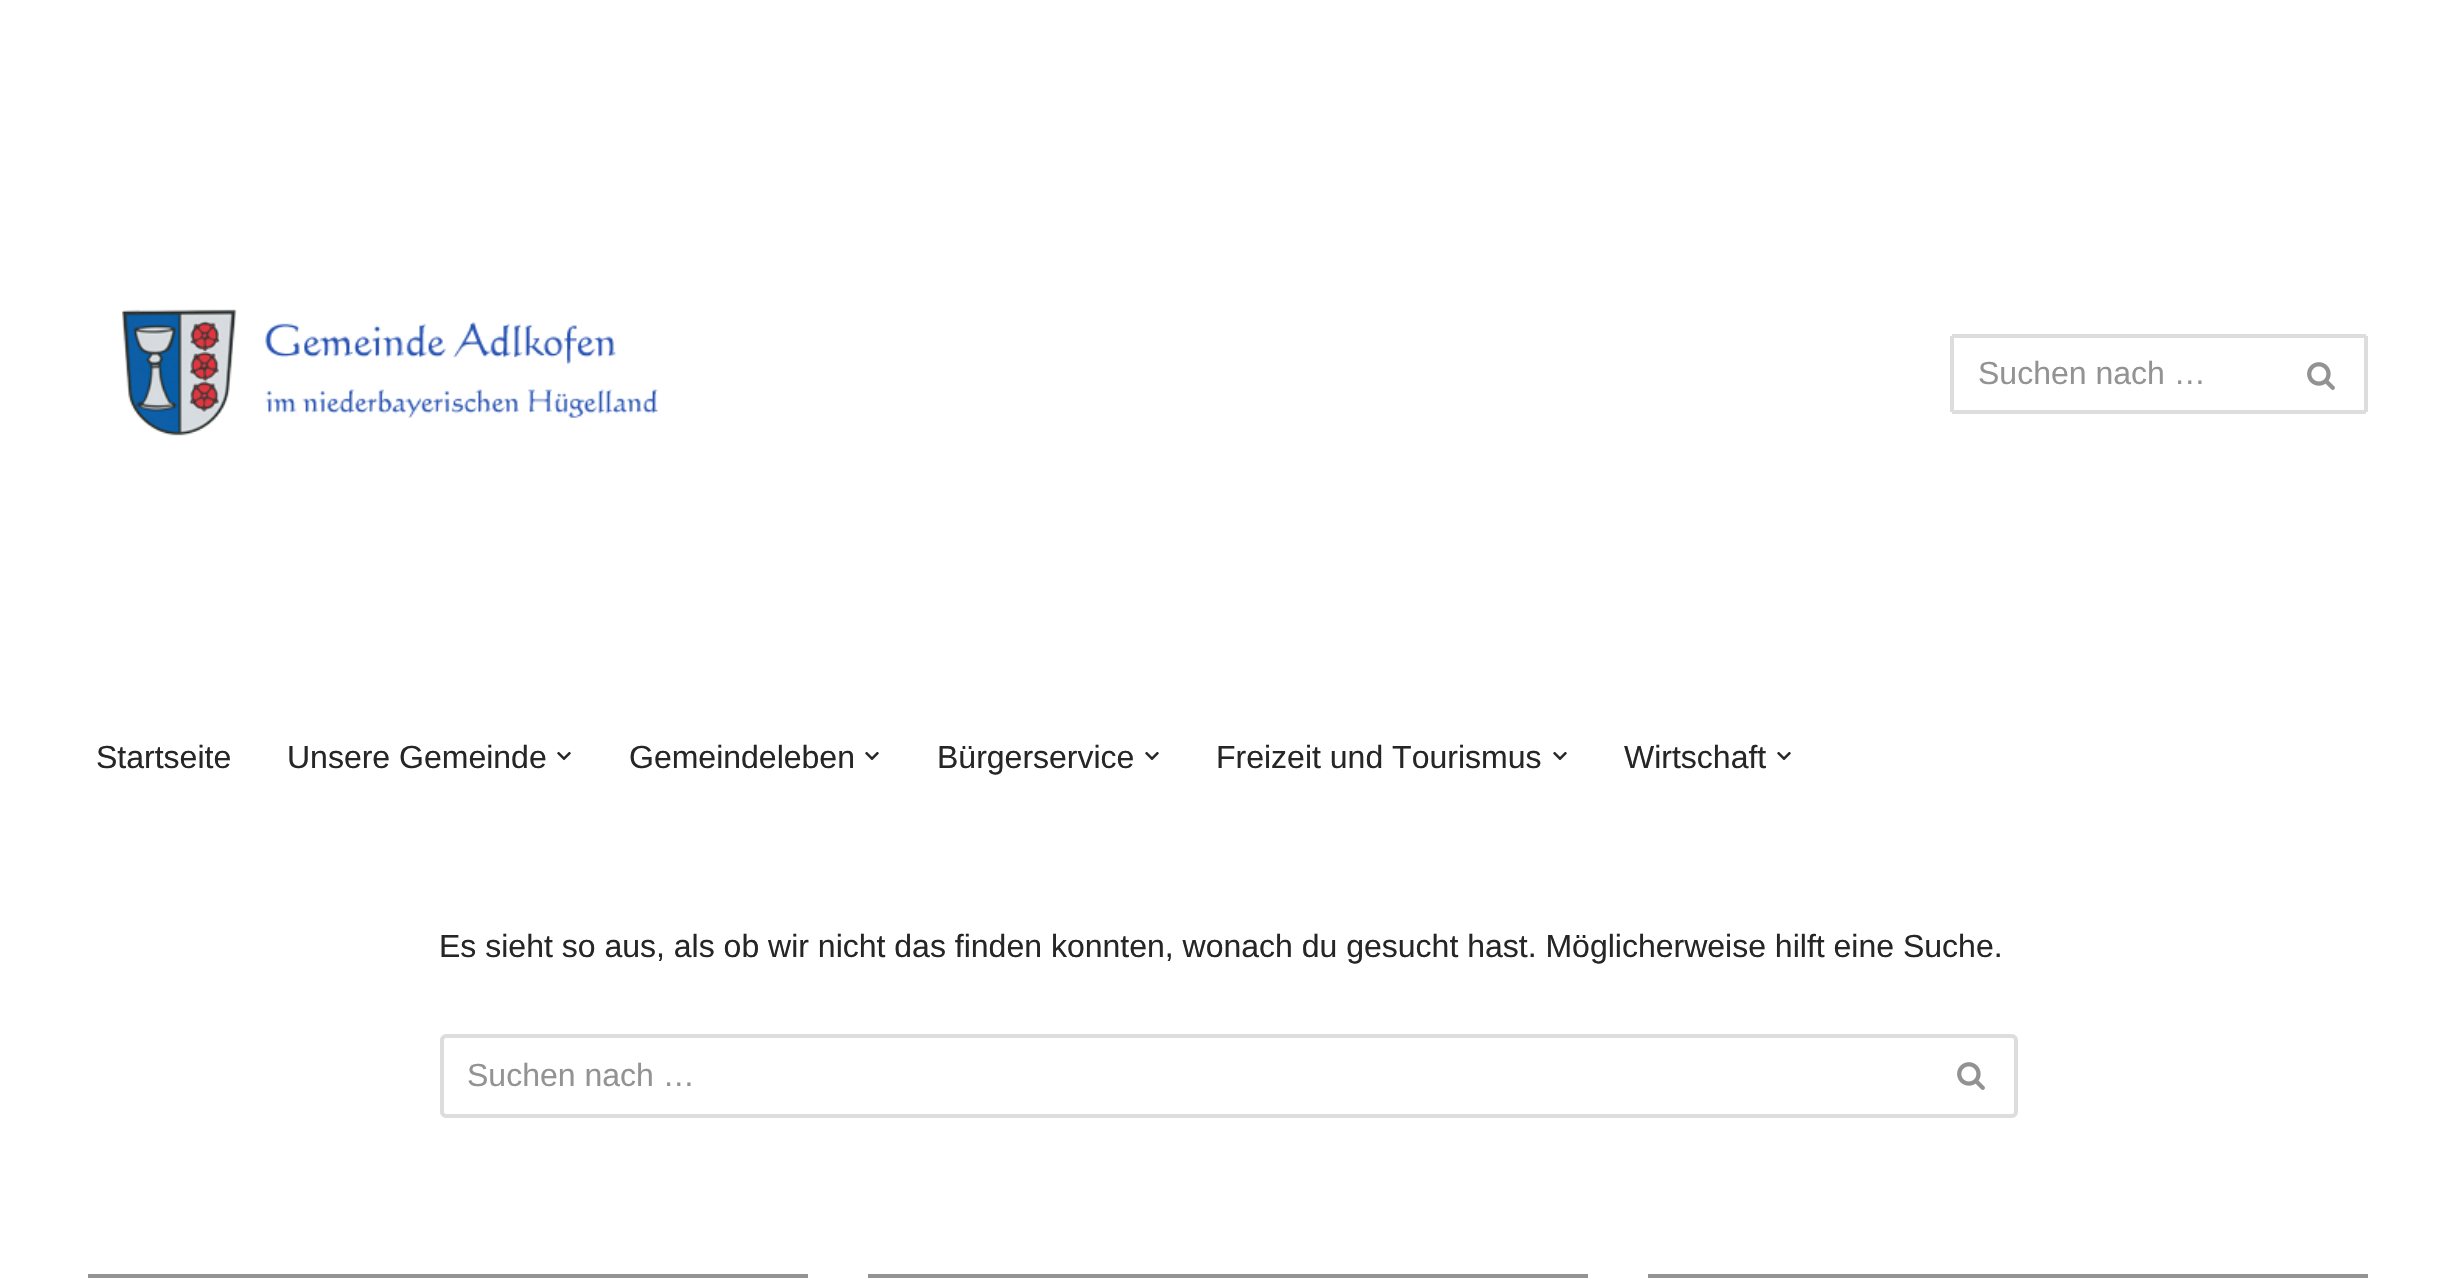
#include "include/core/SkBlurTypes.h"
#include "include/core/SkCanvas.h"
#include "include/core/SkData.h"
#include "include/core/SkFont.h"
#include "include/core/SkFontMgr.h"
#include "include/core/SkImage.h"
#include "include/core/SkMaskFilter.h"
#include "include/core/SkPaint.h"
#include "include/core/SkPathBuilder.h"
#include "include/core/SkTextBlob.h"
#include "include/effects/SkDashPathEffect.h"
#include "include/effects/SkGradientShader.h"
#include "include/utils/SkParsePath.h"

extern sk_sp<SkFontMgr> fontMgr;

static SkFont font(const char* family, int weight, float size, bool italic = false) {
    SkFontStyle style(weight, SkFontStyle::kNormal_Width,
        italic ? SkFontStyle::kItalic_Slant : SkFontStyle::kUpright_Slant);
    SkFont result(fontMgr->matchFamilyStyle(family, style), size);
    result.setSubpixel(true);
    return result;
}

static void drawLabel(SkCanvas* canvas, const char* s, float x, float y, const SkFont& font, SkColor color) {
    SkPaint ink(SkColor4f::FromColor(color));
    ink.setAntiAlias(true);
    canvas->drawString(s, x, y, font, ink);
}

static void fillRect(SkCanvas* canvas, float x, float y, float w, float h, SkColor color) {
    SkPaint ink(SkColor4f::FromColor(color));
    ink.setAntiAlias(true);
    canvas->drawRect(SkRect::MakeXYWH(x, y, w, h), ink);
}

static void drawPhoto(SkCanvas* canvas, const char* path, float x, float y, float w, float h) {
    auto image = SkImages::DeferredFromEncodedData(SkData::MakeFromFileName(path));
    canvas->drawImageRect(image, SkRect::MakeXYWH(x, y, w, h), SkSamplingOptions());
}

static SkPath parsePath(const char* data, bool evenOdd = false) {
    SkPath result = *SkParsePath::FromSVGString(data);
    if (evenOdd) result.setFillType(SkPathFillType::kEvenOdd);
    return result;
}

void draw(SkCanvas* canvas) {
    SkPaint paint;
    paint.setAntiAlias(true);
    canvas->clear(0xFFFFFFFF);
    drawPhoto(canvas, "assets/img1.png", 122, 309, 536, 127);
    fillRect(canvas, 1952, 334, 414, 4, 0xFFDDDDDD);
    fillRect(canvas, 1952, 410, 326, 4, 0xFFDDDDDD);
    fillRect(canvas, 1950, 336, 4, 76, 0xFFDDDDDD);
    SkFont font1 = font("Liberation Sans", 400, 32);
    drawLabel(canvas, "Suchen nach …", 1978, 384, font1, 0xFF939393);
    fillRect(canvas, 2364, 336, 4, 76, 0xFFDDDDDD);
    fillRect(canvas, 2278, 410, 88, 4, 0xFFDDDDDD);
    drawPhoto(canvas, "assets/img2.png", 2307, 362, 28, 28);
    drawLabel(canvas, "Startseite", 96, 768, font1, 0xFF272626);
    drawLabel(canvas, "Unsere Gemeinde", 287, 768, font1, 0xFF272626);
    drawPhoto(canvas, "assets/img3.png", 557, 751, 14, 10);
    drawLabel(canvas, "Gemeindeleben", 629, 768, font1, 0xFF272626);
    drawPhoto(canvas, "assets/img3.png", 865, 751, 14, 10);
    drawLabel(canvas, "Bürgerservice", 937, 768, font1, 0xFF272626);
    drawPhoto(canvas, "assets/img3.png", 1145, 751, 14, 10);
    drawLabel(canvas, "Freizeit und Tourismus", 1216, 768, font1, 0xFF272626);
    drawPhoto(canvas, "assets/img3.png", 1553, 751, 14, 10);
    drawLabel(canvas, "Wirtschaft", 1624, 768, font1, 0xFF272626);
    drawPhoto(canvas, "assets/img3.png", 1777, 751, 14, 10);
    drawLabel(canvas, "Es sieht so aus, als ob wir nicht das finden konnten, wonach du gesucht hast. Möglicherweise hilft eine Suche.", 439, 957, font1, 0xFF272626);
    paint.setColor(0xFFDDDDDD);
    canvas->drawPath(parsePath("M446 1034H1928V1118H446C443 1118 440 1115 440 1112V1040C440 1037 443 1034 446 1034ZM446 1038H1928V1114H446C445 1114 444 1113 444 1112V1040C444 1039 445 1038 446 1038Z", true), paint);
    drawLabel(canvas, "Suchen nach …", 467, 1086, font1, 0xFF939393);
    canvas->drawPath(parsePath("M1928 1034H2012C2015 1034 2018 1037 2018 1040V1112C2018 1115 2015 1118 2012 1118H1928ZM1928 1038H2012C2013 1038 2014 1039 2014 1040V1112C2014 1113 2013 1114 2012 1114H1928Z", true), paint);
    drawPhoto(canvas, "assets/img2.png", 1957, 1062, 28, 28);
    fillRect(canvas, 88, 1274, 720, 4, 0xFF939393);
    fillRect(canvas, 868, 1274, 720, 4, 0xFF939393);
    fillRect(canvas, 1648, 1274, 720, 4, 0xFF939393);
}
